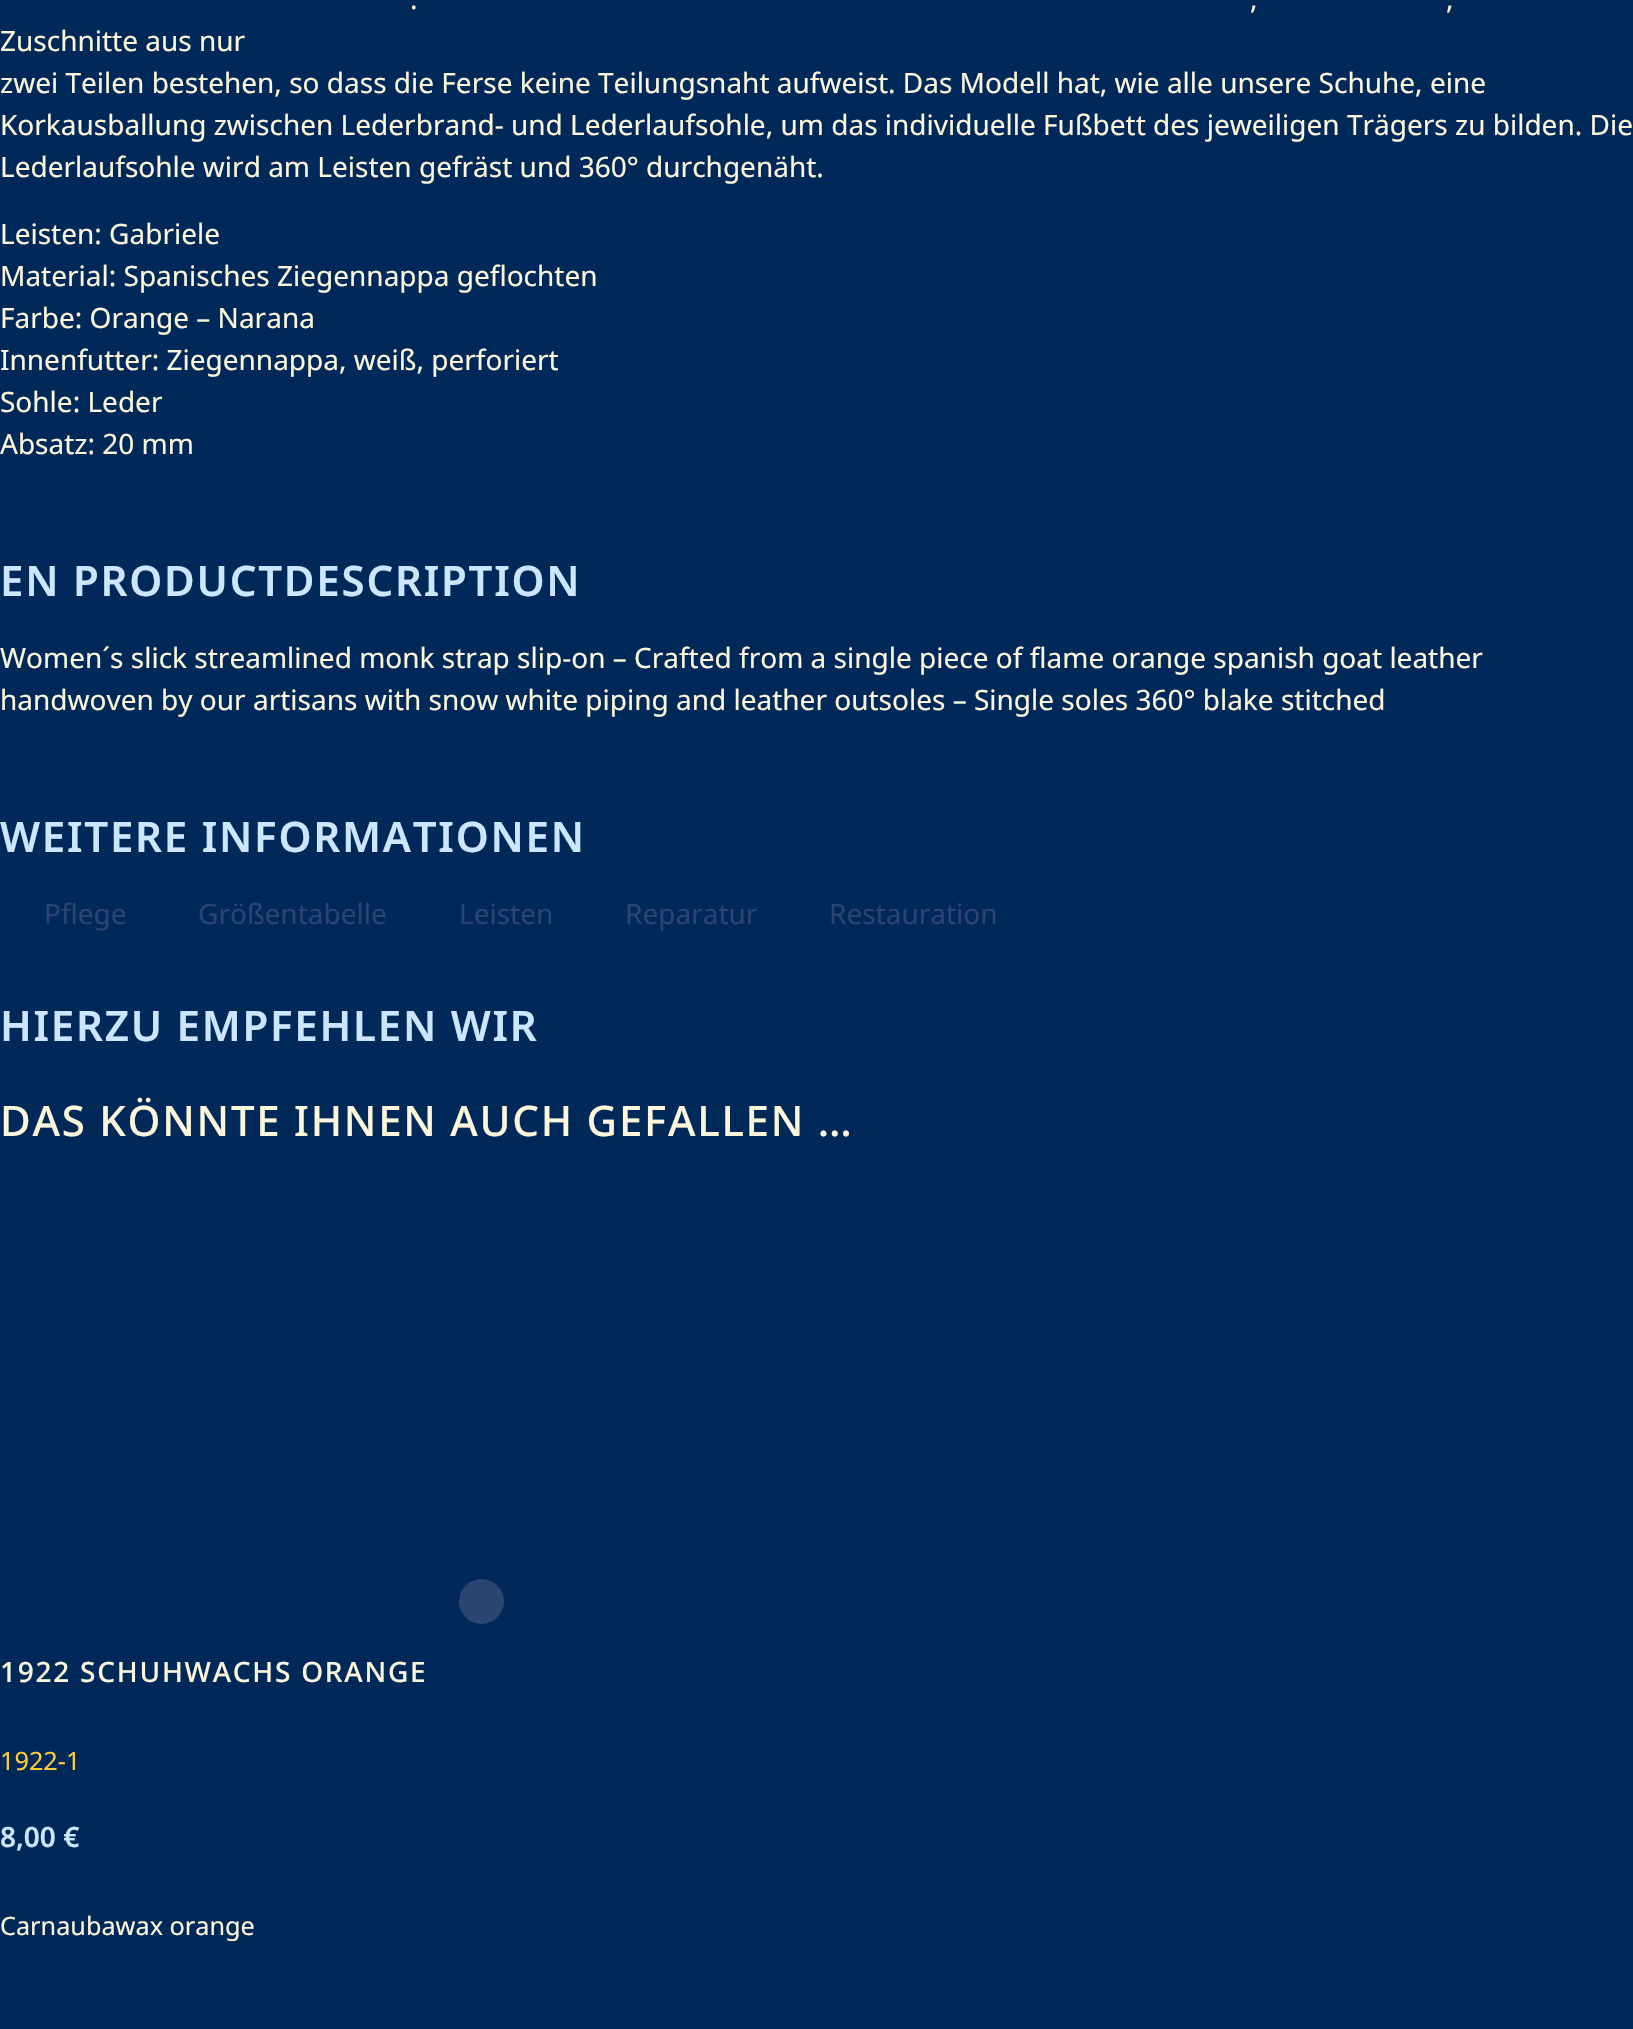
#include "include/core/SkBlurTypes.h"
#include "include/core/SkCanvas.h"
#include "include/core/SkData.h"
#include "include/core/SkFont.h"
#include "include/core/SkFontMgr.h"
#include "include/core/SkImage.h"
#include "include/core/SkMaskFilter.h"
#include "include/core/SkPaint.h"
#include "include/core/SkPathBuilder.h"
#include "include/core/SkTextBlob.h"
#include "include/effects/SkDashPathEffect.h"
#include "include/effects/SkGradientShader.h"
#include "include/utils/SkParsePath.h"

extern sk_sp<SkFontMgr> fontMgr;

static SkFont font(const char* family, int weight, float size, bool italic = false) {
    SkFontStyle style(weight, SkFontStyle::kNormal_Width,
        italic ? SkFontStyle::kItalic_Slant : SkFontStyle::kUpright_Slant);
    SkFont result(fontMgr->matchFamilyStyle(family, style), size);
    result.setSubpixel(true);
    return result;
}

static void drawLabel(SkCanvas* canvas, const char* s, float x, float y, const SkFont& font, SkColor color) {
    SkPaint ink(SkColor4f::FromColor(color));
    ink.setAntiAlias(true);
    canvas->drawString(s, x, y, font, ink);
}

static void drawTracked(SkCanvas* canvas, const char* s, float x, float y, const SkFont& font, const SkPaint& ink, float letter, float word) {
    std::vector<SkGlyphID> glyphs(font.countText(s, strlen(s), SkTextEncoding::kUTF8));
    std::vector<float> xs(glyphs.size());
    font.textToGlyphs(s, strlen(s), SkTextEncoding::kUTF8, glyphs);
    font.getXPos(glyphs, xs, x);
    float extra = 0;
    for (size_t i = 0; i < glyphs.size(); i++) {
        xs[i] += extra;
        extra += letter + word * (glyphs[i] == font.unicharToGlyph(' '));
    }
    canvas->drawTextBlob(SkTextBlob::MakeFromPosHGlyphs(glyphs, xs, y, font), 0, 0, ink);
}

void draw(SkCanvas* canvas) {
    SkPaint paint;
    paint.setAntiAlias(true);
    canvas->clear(0xFF002959);
    SkFont font1 = font("Noto Sans", 400, 28);
    drawLabel(canvas, ".", 410, 9, font1, 0xFFFCF7DB);
    drawLabel(canvas, ",", 1250, 9, font1, 0xFFFCF7DB);
    drawLabel(canvas, ",", 1446, 9, font1, 0xFFFCF7DB);
    drawLabel(canvas, "Zuschnitte aus nur", 0, 51, font1, 0xFFFCF7DB);
    drawLabel(canvas, "zwei Teilen bestehen, so dass die Ferse keine Teilungsnaht aufweist. Das Modell hat, wie alle unsere Schuhe, eine", 0, 93, font1, 0xFFFCF7DB);
    drawLabel(canvas, "Korkausballung zwischen Lederbrand- und Lederlaufsohle, um das individuelle Fußbett des jeweiligen Trägers zu bilden. Die", 0, 135, font1, 0xFFFCF7DB);
    drawLabel(canvas, "Lederlaufsohle wird am Leisten gefräst und 360° durchgenäht.", 0, 177, font1, 0xFFFCF7DB);
    drawLabel(canvas, "Leisten: Gabriele", 0, 244, font1, 0xFFFCF7DB);
    drawLabel(canvas, "Material: Spanisches Ziegennappa geflochten", 0, 286, font1, 0xFFFCF7DB);
    drawLabel(canvas, "Farbe: Orange – Narana", 0, 328, font1, 0xFFFCF7DB);
    drawLabel(canvas, "Innenfutter: Ziegennappa, weiß, perforiert", 0, 370, font1, 0xFFFCF7DB);
    drawLabel(canvas, "Sohle: Leder", 0, 412, font1, 0xFFFCF7DB);
    drawLabel(canvas, "Absatz: 20 mm", 0, 454, font1, 0xFFFCF7DB);
    SkFont font2 = font("Noto Sans", 600, 42);
    paint.setColor(0xFFCCE6FF);
    drawTracked(canvas, "EN PRODUCTDESCRIPTION", 0, 596, font2, paint, 1.75f, 0);
    drawLabel(canvas, "Women´s slick streamlined monk strap slip-on – Crafted from a single piece of flame orange spanish goat leather", 0, 668, font1, 0xFFFCF7DB);
    drawLabel(canvas, "handwoven by our artisans with snow white piping and leather outsoles – Single soles 360° blake stitched", 0, 710, font1, 0xFFFCF7DB);
    drawTracked(canvas, "WEITERE INFORMATIONEN", 0, 852, font2, paint, 1.75f, 0);
    drawLabel(canvas, "Pflege", 44, 924, font1, 0xFF2A4572);
    drawLabel(canvas, "Größentabelle", 198, 924, font1, 0xFF2A4572);
    drawLabel(canvas, "Leisten", 459, 924, font1, 0xFF2A4572);
    drawLabel(canvas, "Reparatur", 625, 924, font1, 0xFF2A4572);
    drawLabel(canvas, "Restauration", 829, 924, font1, 0xFF2A4572);
    drawTracked(canvas, "HIERZU EMPFEHLEN WIR", 0, 1041, font2, paint, 1.75f, 0);
    SkFont font3 = font("Noto Sans", 500, 42);
    paint.setColor(0xFFFCF7DB);
    drawTracked(canvas, "DAS KÖNNTE IHNEN AUCH GEFALLEN …", 0, 1136, font3, paint, 1.75f, 0);
    paint.setColor(0xFF2A4572);
    canvas->drawCircle(481.5f, 1601.5f, 22.5f, paint);
    SkFont font4 = font("Noto Sans", 500, 28);
    paint.setColor(0xFFFCF7DB);
    drawTracked(canvas, "1922 SCHUHWACHS ORANGE", 0, 1682, font4, paint, 1.75f, 0);
    SkFont font5 = font("Noto Sans", 400, 25.25f);
    drawLabel(canvas, "1922-1", 0, 1770, font5, 0xFFFFCC33);
    SkFont font6 = font("Noto Sans", 600, 28);
    drawLabel(canvas, "8,00 €", 0, 1847, font6, 0xFFCCE6FF);
    drawLabel(canvas, "Carnaubawax orange", 0, 1935, font5, 0xFFFCF7DB);
}
